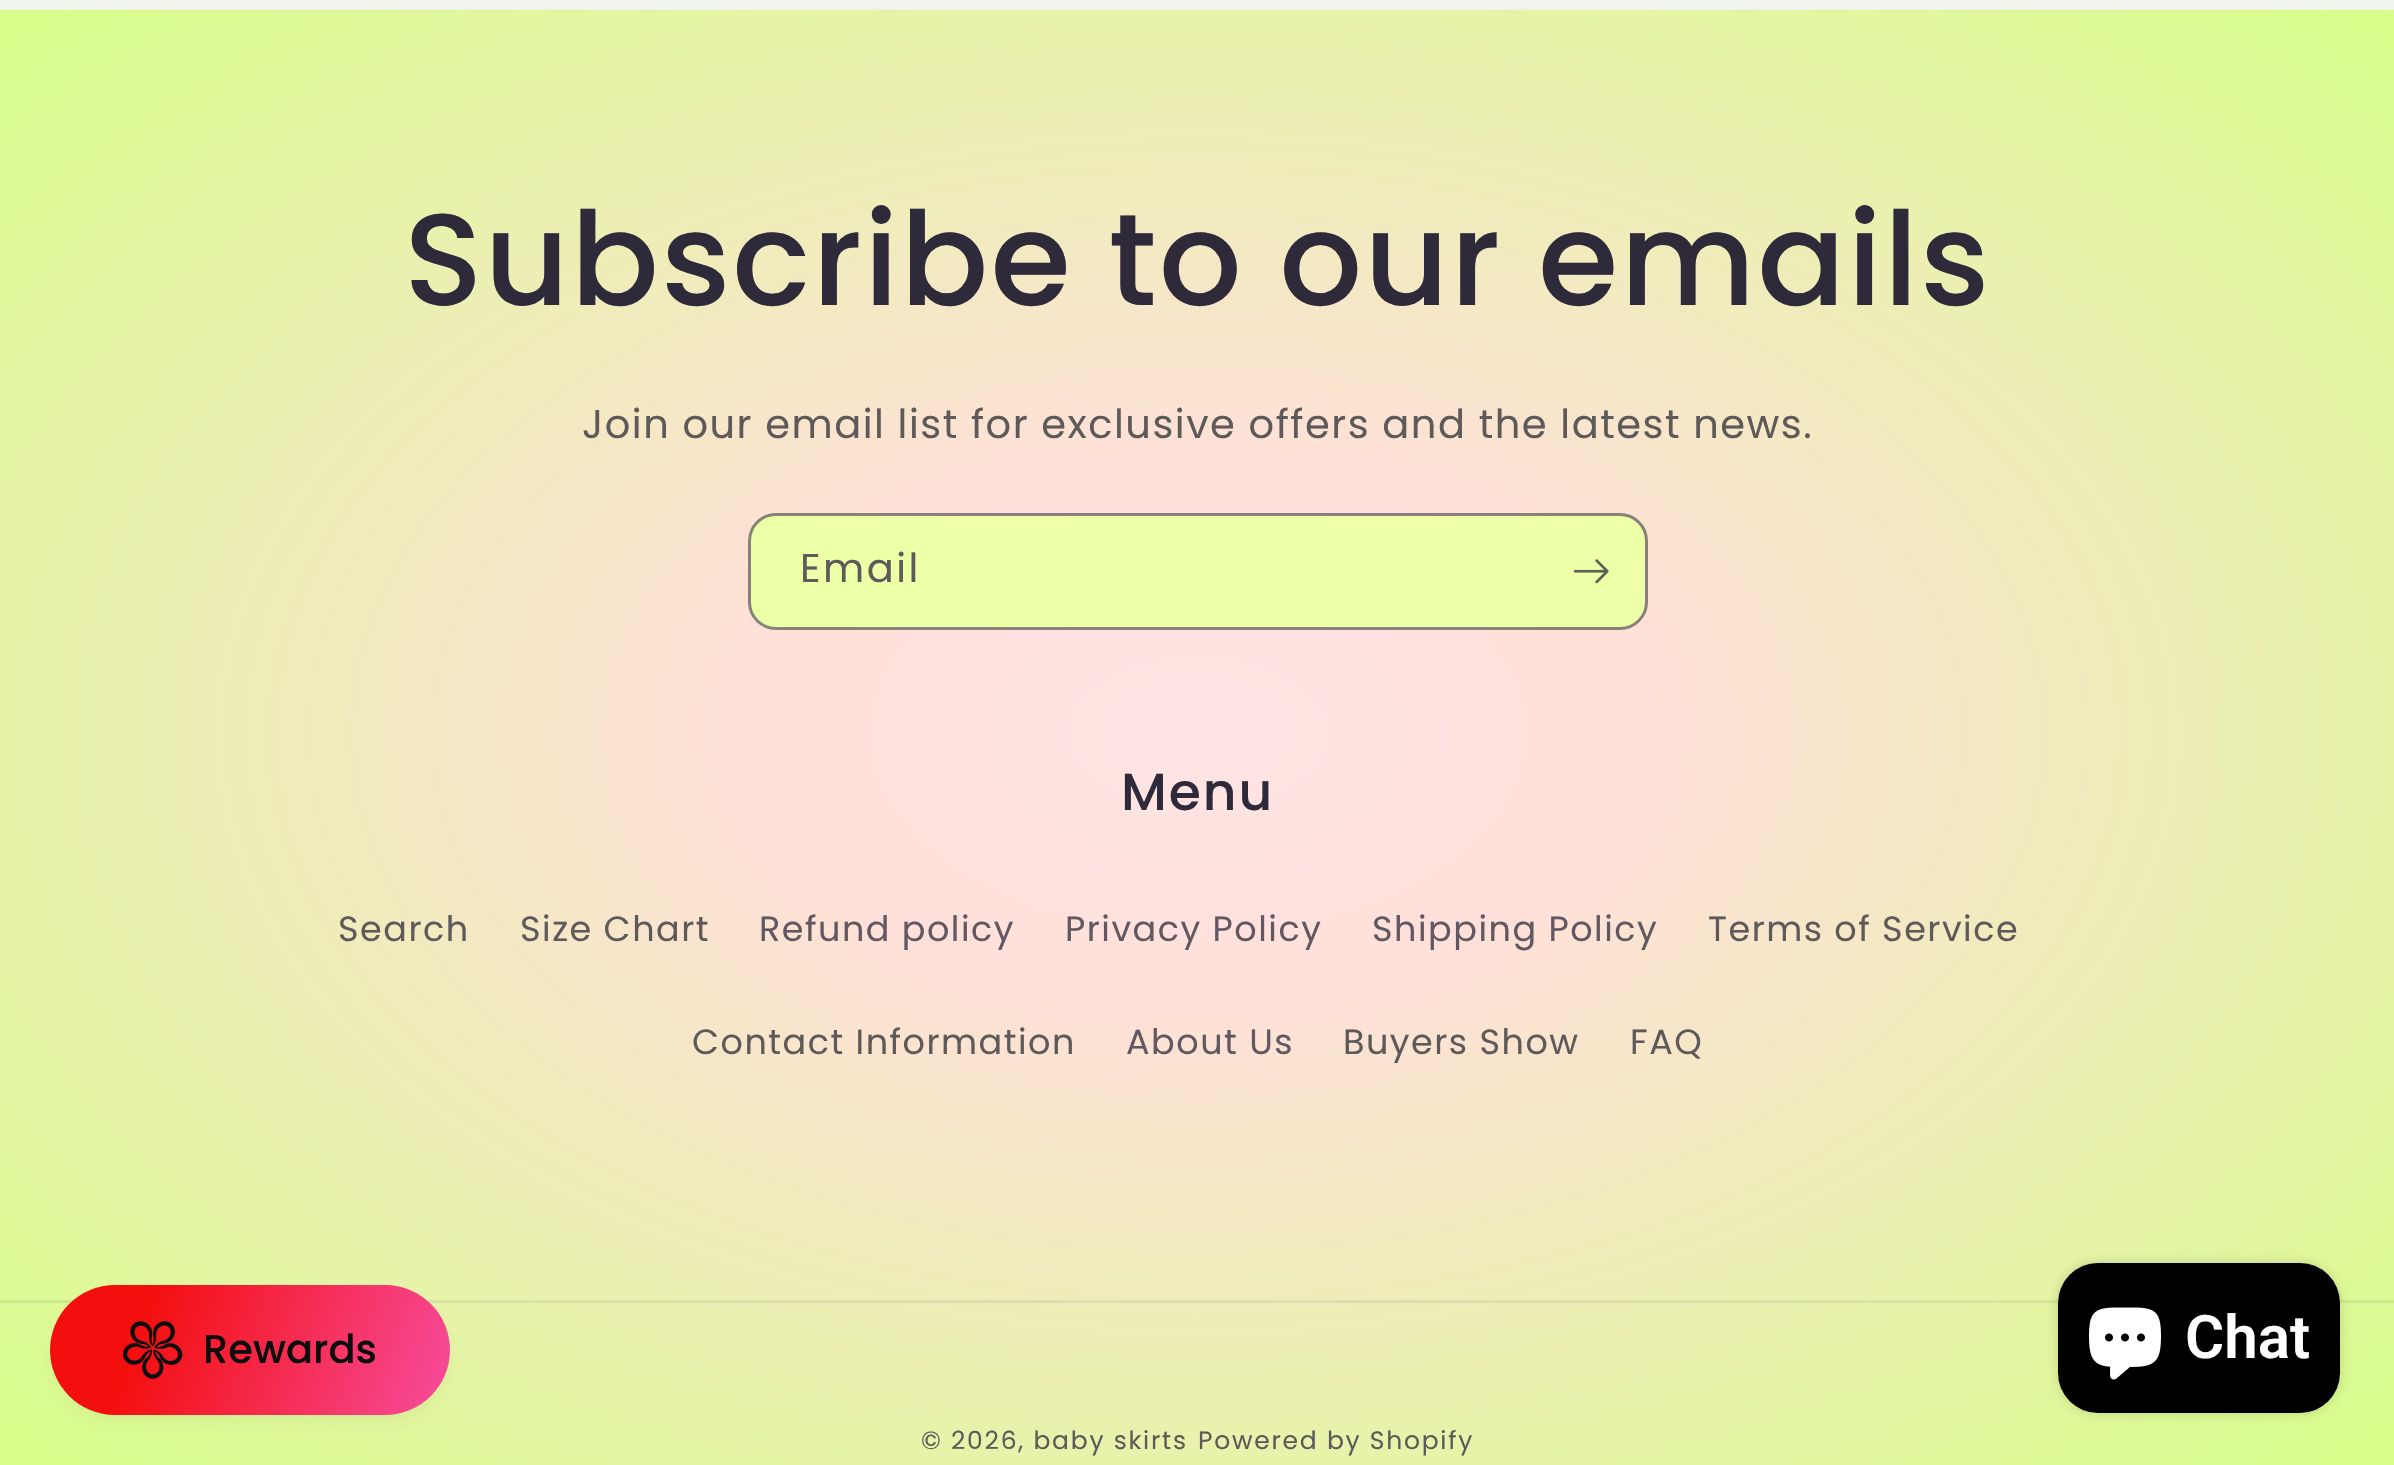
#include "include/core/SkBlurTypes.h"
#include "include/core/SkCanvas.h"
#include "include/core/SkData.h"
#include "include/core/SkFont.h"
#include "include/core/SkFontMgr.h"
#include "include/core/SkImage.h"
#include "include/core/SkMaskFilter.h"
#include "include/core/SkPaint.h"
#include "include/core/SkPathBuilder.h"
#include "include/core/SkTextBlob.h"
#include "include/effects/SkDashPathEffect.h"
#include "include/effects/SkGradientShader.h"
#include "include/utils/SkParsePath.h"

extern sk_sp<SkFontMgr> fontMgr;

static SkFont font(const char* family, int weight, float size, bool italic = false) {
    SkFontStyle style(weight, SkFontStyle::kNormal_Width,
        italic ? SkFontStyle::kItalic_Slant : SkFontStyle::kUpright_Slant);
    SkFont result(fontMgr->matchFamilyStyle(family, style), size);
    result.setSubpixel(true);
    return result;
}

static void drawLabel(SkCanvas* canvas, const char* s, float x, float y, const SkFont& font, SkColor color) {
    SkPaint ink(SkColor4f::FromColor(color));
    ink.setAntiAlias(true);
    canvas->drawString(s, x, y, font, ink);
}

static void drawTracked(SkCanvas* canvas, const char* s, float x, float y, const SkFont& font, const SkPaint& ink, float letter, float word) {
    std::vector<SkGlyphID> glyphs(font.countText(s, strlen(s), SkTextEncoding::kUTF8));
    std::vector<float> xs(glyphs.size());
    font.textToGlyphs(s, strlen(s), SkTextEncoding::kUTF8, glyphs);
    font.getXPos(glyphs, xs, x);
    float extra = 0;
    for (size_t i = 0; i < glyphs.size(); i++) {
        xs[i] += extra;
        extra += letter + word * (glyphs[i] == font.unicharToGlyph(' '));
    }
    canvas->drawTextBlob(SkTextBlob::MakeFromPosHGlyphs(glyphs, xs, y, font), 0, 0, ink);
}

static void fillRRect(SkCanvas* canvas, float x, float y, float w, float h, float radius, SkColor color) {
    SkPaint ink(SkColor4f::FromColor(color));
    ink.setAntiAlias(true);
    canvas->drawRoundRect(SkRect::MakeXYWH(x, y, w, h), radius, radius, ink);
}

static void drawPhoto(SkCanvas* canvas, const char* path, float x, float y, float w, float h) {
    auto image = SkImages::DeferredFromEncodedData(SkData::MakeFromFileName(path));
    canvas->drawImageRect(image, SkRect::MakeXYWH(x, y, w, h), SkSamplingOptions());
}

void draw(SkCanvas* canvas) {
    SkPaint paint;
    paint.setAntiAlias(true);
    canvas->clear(0xFFFFFFFF);
    {
        const SkColor colors[] = {0xFFF0F4EC, 0xFFF1EBE2};
        const float stops[] = {0, 1};
        const SkPoint ends[] = {{1197, 0}, {1198, 1465}};
        paint.setShader(SkGradientShader::MakeLinear(ends, colors, stops, 2, SkTileMode::kClamp));
        paint.setAlpha(255);
    }
    canvas->drawRect(SkRect::MakeXYWH(0, 0, 2394, 10), paint);
    {
        const SkColor colors[] = {0xFFFFE5E5, 0xFFFFE0DA, 0xFFD7FF89};
        const float stops[] = {0, 0.25f, 1};
        SkMatrix m = SkMatrix::Translate(1198, 733).preScale(1694, 1036);
        paint.setShader(SkGradientShader::MakeRadial({0, 0}, 1, colors, stops, 3, SkTileMode::kClamp, 0, &m));
        paint.setAlpha(255);
    }
    canvas->drawRect(SkRect::MakeXYWH(0, 10, 2394, 750), paint);
    SkFont font1 = font("Poppins", 500, 130);
    paint.setShader(nullptr);
    paint.setColor(0xFF2E2A39);
    drawTracked(canvas, "Subscribe to our emails", 404, 305, font1, paint, 1.95f, 0);
    SkFont font2 = font("Poppins", 400, 40);
    paint.setColor(0xFF5F5A5A);
    drawTracked(canvas, "Join our email list for exclusive offers and the latest news.", 582, 438, font2, paint, 1.5f, 0);
    fillRRect(canvas, 750, 515, 895, 113, 25, 0xFFEDFFA7);
    paint.setStroke(true);
    paint.setStrokeWidth(3);
    paint.setColor(0x8C2E2A39);
    canvas->drawRoundRect(SkRect::MakeXYWH(749.5f, 514.5f, 897, 114), 26.5f, 26.5f, paint);
    paint.setStroke(false);
    paint.setColor(0xFF5F5A5A);
    drawTracked(canvas, "Email", 800, 582, font2, paint, 2.5f, 0);
    drawPhoto(canvas, "assets/img1.png", 1573, 559, 36, 25);
    {
        const SkColor colors[] = {0xFFFFE5E5, 0xFFFFE0DA, 0xFFD7FF89};
        const float stops[] = {0, 0.25f, 1};
        SkMatrix m = SkMatrix::Translate(1198, 733).preScale(1694, 1036);
        paint.setShader(SkGradientShader::MakeRadial({0, 0}, 1, colors, stops, 3, SkTileMode::kClamp, 0, &m));
        paint.setAlpha(255);
    }
    canvas->drawRect(SkRect::MakeXYWH(0, 760, 2394, 705), paint);
    {
        const SkColor colors[] = {0xFFEED6D7, 0xFFEED1CD, 0xFFC9EE83};
        const float stops[] = {0, 0.25f, 1};
        SkMatrix m = SkMatrix::Translate(1198, 733).preScale(1694, 1036);
        paint.setShader(SkGradientShader::MakeRadial({0, 0}, 1, colors, stops, 3, SkTileMode::kClamp, 0, &m));
        paint.setAlpha(255);
    }
    canvas->drawRect(SkRect::MakeXYWH(0, 1300, 2394, 3), paint);
    paint.setShader(nullptr);
    paint.setColor(0x14444444);
    paint.setMaskFilter(SkMaskFilter::MakeBlur(kNormal_SkBlurStyle, 10));
    canvas->drawRoundRect(SkRect::MakeXYWH(55, 1300, 390, 120), 60, 60, paint);
    paint.setMaskFilter(nullptr);
    {
        const SkColor colors[] = {0xFFF40F0F, 0xFFF86DE9};
        const float stops[] = {0.17f, 1};
        const SkPoint ends[] = {{52, 1280}, {607, 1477}};
        paint.setShader(SkGradientShader::MakeLinear(ends, colors, stops, 2, SkTileMode::kClamp));
        paint.setAlpha(255);
    }
    canvas->drawRoundRect(SkRect::MakeXYWH(50, 1285, 400, 130), 65, 65, paint);
    drawPhoto(canvas, "assets/img2.png", 123, 1321, 60, 58);
    SkFont font3 = font("Poppins", 500, 40);
    drawLabel(canvas, "Rewards", 203, 1363, font3, 0xFF0D0D0E);
    SkFont font4 = font("Poppins", 500, 52);
    paint.setShader(nullptr);
    paint.setColor(0xFF2E2A39);
    drawTracked(canvas, "Menu", 1121, 810, font4, paint, 1.95f, 0);
    SkFont font5 = font("Poppins", 400, 35);
    paint.setColor(0xFF5F5A5A);
    drawTracked(canvas, "Search", 338, 941, font5, paint, 1.5f, 0);
    drawTracked(canvas, "Size Chart", 520, 941, font5, paint, 1.5f, 0);
    paint.setColor(0xFF625861);
    drawTracked(canvas, "Refund policy", 759, 941, font5, paint, 1.5f, 0);
    drawTracked(canvas, "Privacy Policy", 1065, 941, font5, paint, 1.5f, 0);
    drawTracked(canvas, "Shipping Policy", 1372, 941, font5, paint, 1.5f, 0);
    paint.setColor(0xFF5F5A5A);
    drawTracked(canvas, "Terms of Service", 1708, 941, font5, paint, 1.5f, 0);
    drawTracked(canvas, "Contact Information", 692, 1054, font5, paint, 1.5f, 0);
    paint.setColor(0xFF625861);
    drawTracked(canvas, "About Us", 1126, 1054, font5, paint, 1.5f, 0);
    paint.setColor(0xFF5F5A5A);
    drawTracked(canvas, "Buyers Show", 1343, 1054, font5, paint, 1.5f, 0);
    drawTracked(canvas, "FAQ", 1630, 1054, font5, paint, 1.5f, 0);
    SkFont font6 = font("Poppins", 400, 25);
    drawTracked(canvas, "© 2026, baby skirts", 921, 1449, font6, paint, 1.75f, 0);
    drawTracked(canvas, "Powered by Shopify", 1198, 1449, font6, paint, 1.75f, 0);
    paint.setColor(0x26000000);
    paint.setMaskFilter(SkMaskFilter::MakeBlur(kNormal_SkBlurStyle, 6));
    canvas->drawRoundRect(SkRect::MakeXYWH(2058, 1263, 282, 150), 40, 40, paint);
    paint.setMaskFilter(nullptr);
    fillRRect(canvas, 2058, 1263, 282, 150, 40, 0xFF000000);
    drawPhoto(canvas, "assets/img3.png", 2089, 1307, 72, 73);
    SkFont font7 = font("Roboto", 600, 60);
    drawLabel(canvas, "Chat", 2185, 1358, font7, 0xFFFFFFFF);
}
